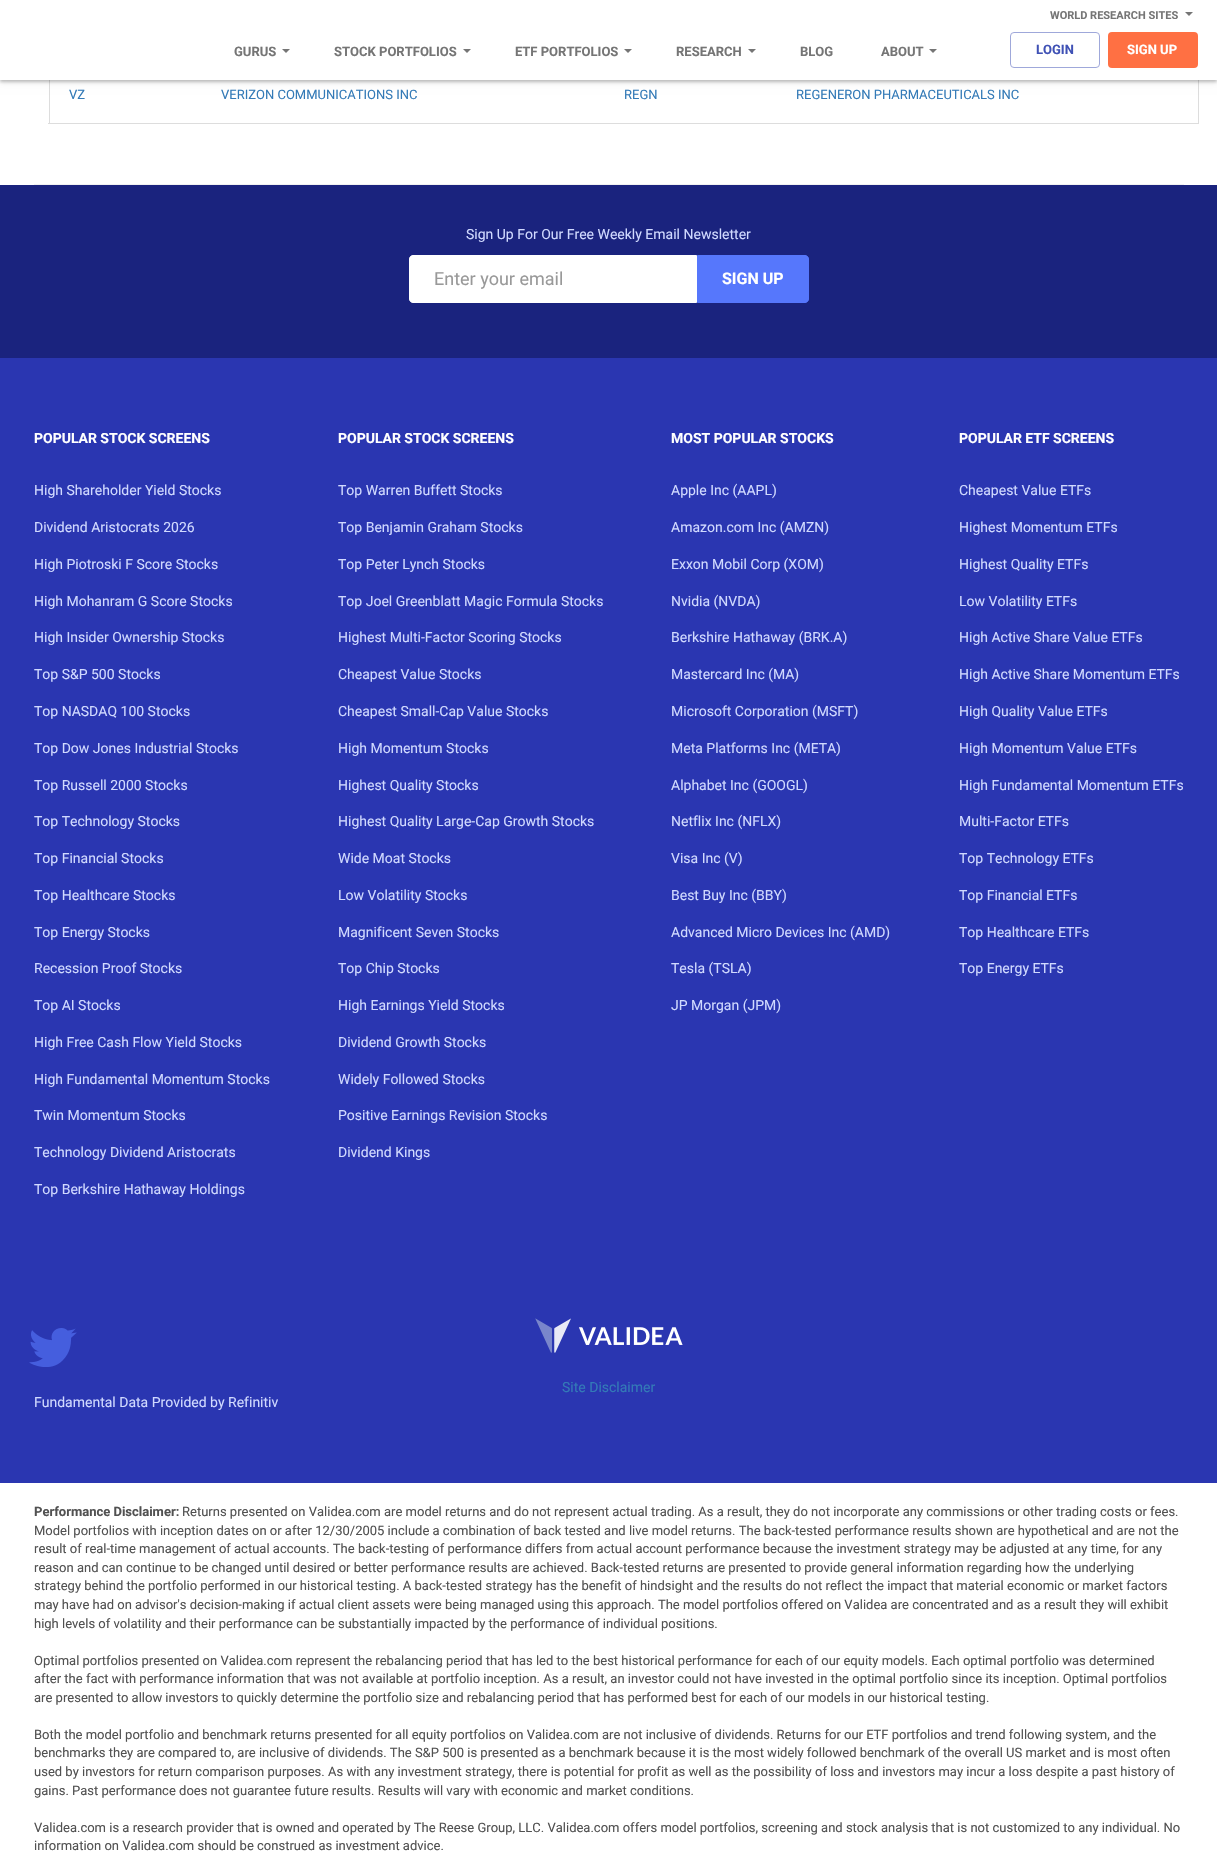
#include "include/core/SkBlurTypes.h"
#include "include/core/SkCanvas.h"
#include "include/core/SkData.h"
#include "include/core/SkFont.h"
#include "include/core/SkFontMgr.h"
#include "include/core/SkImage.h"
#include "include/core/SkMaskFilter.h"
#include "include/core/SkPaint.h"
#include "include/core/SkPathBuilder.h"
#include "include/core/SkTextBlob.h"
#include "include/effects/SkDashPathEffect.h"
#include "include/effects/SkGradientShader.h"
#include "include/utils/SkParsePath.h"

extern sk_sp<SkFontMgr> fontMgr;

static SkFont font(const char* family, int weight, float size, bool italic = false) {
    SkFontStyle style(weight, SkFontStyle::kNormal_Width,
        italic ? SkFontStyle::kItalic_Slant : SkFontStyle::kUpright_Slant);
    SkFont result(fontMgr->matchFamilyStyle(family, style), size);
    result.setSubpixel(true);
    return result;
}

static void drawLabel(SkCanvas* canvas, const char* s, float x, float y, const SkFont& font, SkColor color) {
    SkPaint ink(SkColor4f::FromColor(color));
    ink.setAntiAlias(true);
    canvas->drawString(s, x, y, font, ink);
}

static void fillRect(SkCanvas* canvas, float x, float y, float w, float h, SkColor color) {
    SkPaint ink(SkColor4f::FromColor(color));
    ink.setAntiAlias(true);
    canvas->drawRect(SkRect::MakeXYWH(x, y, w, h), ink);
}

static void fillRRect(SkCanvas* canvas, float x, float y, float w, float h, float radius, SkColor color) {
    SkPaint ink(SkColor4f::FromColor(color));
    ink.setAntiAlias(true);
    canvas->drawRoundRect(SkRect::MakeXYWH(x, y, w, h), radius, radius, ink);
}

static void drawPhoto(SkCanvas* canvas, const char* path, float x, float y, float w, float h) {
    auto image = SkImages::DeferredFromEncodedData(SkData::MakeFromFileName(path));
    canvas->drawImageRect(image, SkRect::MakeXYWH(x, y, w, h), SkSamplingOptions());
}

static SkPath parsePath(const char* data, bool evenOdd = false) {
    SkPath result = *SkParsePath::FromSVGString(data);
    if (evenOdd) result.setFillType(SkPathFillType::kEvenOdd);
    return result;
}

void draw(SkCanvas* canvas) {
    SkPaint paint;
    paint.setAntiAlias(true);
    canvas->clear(0xFFFFFFFF);
    fillRect(canvas, 48, 123, 1151, 1, 0xFFDDDDDD);
    fillRect(canvas, 49, 80, 1, 44, 0xFFDDDDDD);
    fillRect(canvas, 1198, 80, 1, 44, 0xFFDDDDDD);
    paint.setColor(0x0D000000);
    paint.setMaskFilter(SkMaskFilter::MakeBlur(kNormal_SkBlurStyle, 4));
    canvas->drawRect(SkRect::MakeXYWH(0, 3, 1217, 80), paint);
    paint.setMaskFilter(nullptr);
    paint.setColor(0x3D000000);
    paint.setMaskFilter(SkMaskFilter::MakeBlur(kNormal_SkBlurStyle, 1.5f));
    canvas->drawRect(SkRect::MakeXYWH(0, 2, 1217, 80), paint);
    paint.setMaskFilter(nullptr);
    fillRect(canvas, 0, 0, 1217, 80, 0xFFFFFFFF);
    SkFont font1 = font("Roboto", 700, 11);
    drawLabel(canvas, "WORLD RESEARCH SITES", 1050, 19, font1, 0xFF757575);
    paint.setColor(0xFF757575);
    canvas->drawPath(parsePath("M1185 12H1193L1189 16Z"), paint);
    SkFont font2 = font("Roboto", 700, 13);
    drawLabel(canvas, "GURUS", 234, 56, font2, 0xFF757575);
    canvas->drawPath(parsePath("M282 49H290L286 53Z"), paint);
    drawLabel(canvas, "STOCK PORTFOLIOS", 334, 56, font2, 0xFF757575);
    canvas->drawPath(parsePath("M463 49H471L467 53Z"), paint);
    drawLabel(canvas, "ETF PORTFOLIOS", 515, 56, font2, 0xFF757575);
    canvas->drawPath(parsePath("M624 49H632L628 53Z"), paint);
    drawLabel(canvas, "RESEARCH", 676, 56, font2, 0xFF757575);
    canvas->drawPath(parsePath("M748 49H756L752 53Z"), paint);
    drawLabel(canvas, "BLOG", 800, 56, font2, 0xFF757575);
    drawLabel(canvas, "ABOUT", 881, 56, font2, 0xFF757575);
    canvas->drawPath(parsePath("M929 49H937L933 53Z"), paint);
    paint.setStroke(true);
    paint.setStrokeWidth(1);
    paint.setColor(0xFF9FA8DA);
    canvas->drawRoundRect(SkRect::MakeXYWH(1010.5f, 32.5f, 89, 35), 3.5f, 3.5f, paint);
    drawLabel(canvas, "LOGIN", 1036, 54, font2, 0xFF3F51B5);
    fillRRect(canvas, 1108, 32, 90, 36, 4, 0xFFFF7043);
    drawLabel(canvas, "SIGN UP", 1127, 54, font2, 0xFFFFFFFF);
    fillRect(canvas, 34, 184, 1150, 1, 0xFFF1F1F1);
    SkFont font3 = font("Roboto", 400, 13);
    drawLabel(canvas, "VZ", 69, 99, font3, 0xFF337AB7);
    drawLabel(canvas, "VERIZON COMMUNICATIONS INC", 221, 99, font3, 0xFF337AB7);
    drawLabel(canvas, "REGN", 624, 99, font3, 0xFF337AB7);
    drawLabel(canvas, "REGENERON PHARMACEUTICALS INC", 796, 99, font3, 0xFF337AB7);
    fillRect(canvas, 0, 358, 1217, 1125, 0xFF2A36B1);
    fillRect(canvas, 0, 185, 1217, 173, 0xFF1A237E);
    SkFont font4 = font("Roboto", 400, 14);
    drawLabel(canvas, "Sign Up For Our Free Weekly Email Newsletter", 466, 239, font4, 0xFFD0D9FF);
    paint.setStroke(false);
    paint.setColor(0xFFFFFFFF);
    canvas->drawPath(parsePath("M413 255.5H696.5V302.5H413C411 302.5 409.5 301 409.5 299V259C409.5 257 411 255.5 413 255.5Z"), paint);
    paint.setStroke(true);
    canvas->drawPath(parsePath("M413 255.5H696.5V302.5H413C411 302.5 409.5 301 409.5 299V259C409.5 257 411 255.5 413 255.5Z"), paint);
    SkFont font5 = font("Roboto", 400, 18);
    drawLabel(canvas, "Enter your email", 434, 285, font5, 0xFF999999);
    paint.setStroke(false);
    paint.setColor(0xFF5677FC);
    canvas->drawPath(parsePath("M697.5 255.5H805C807 255.5 808.5 257 808.5 259V299C808.5 301 807 302.5 805 302.5H697.5Z"), paint);
    paint.setStroke(true);
    canvas->drawPath(parsePath("M697.5 255.5H805C807 255.5 808.5 257 808.5 259V299C808.5 301 807 302.5 805 302.5H697.5Z"), paint);
    SkFont font6 = font("Roboto", 700, 16);
    drawLabel(canvas, "SIGN UP", 722, 284, font6, 0xFFFFFFFF);
    SkFont font7 = font("Roboto", 700, 14);
    drawLabel(canvas, "POPULAR STOCK SCREENS", 34, 443, font7, 0xFFFFFFFF);
    drawLabel(canvas, "High Shareholder Yield Stocks", 34, 495, font4, 0xFFD0D9FF);
    drawLabel(canvas, "Dividend Aristocrats 2026", 34, 532, font4, 0xFFD0D9FF);
    drawLabel(canvas, "High Piotroski F Score Stocks", 34, 569, font4, 0xFFD0D9FF);
    drawLabel(canvas, "High Mohanram G Score Stocks", 34, 606, font4, 0xFFD0D9FF);
    drawLabel(canvas, "High Insider Ownership Stocks", 34, 642, font4, 0xFFD0D9FF);
    drawLabel(canvas, "Top S&P 500 Stocks", 34, 679, font4, 0xFFD0D9FF);
    drawLabel(canvas, "Top NASDAQ 100 Stocks", 34, 716, font4, 0xFFD0D9FF);
    drawLabel(canvas, "Top Dow Jones Industrial Stocks", 34, 753, font4, 0xFFD0D9FF);
    drawLabel(canvas, "Top Russell 2000 Stocks", 34, 790, font4, 0xFFD0D9FF);
    drawLabel(canvas, "Top Technology Stocks", 34, 826, font4, 0xFFD0D9FF);
    drawLabel(canvas, "Top Financial Stocks", 34, 863, font4, 0xFFD0D9FF);
    drawLabel(canvas, "Top Healthcare Stocks", 34, 900, font4, 0xFFD0D9FF);
    drawLabel(canvas, "Top Energy Stocks", 34, 937, font4, 0xFFD0D9FF);
    drawLabel(canvas, "Recession Proof Stocks", 34, 973, font4, 0xFFD0D9FF);
    drawLabel(canvas, "Top AI Stocks", 34, 1010, font4, 0xFFD0D9FF);
    drawLabel(canvas, "High Free Cash Flow Yield Stocks", 34, 1047, font4, 0xFFD0D9FF);
    drawLabel(canvas, "High Fundamental Momentum Stocks", 34, 1084, font4, 0xFFD0D9FF);
    drawLabel(canvas, "Twin Momentum Stocks", 34, 1120, font4, 0xFFD0D9FF);
    drawLabel(canvas, "Technology Dividend Aristocrats", 34, 1157, font4, 0xFFD0D9FF);
    drawLabel(canvas, "Top Berkshire Hathaway Holdings", 34, 1194, font4, 0xFFD0D9FF);
    drawLabel(canvas, "POPULAR STOCK SCREENS", 338, 443, font7, 0xFFFFFFFF);
    drawLabel(canvas, "Top Warren Buffett Stocks", 338, 495, font4, 0xFFD0D9FF);
    drawLabel(canvas, "Top Benjamin Graham Stocks", 338, 532, font4, 0xFFD0D9FF);
    drawLabel(canvas, "Top Peter Lynch Stocks", 338, 569, font4, 0xFFD0D9FF);
    drawLabel(canvas, "Top Joel Greenblatt Magic Formula Stocks", 338, 606, font4, 0xFFD0D9FF);
    drawLabel(canvas, "Highest Multi-Factor Scoring Stocks", 338, 642, font4, 0xFFD0D9FF);
    drawLabel(canvas, "Cheapest Value Stocks", 338, 679, font4, 0xFFD0D9FF);
    drawLabel(canvas, "Cheapest Small-Cap Value Stocks", 338, 716, font4, 0xFFD0D9FF);
    drawLabel(canvas, "High Momentum Stocks", 338, 753, font4, 0xFFD0D9FF);
    drawLabel(canvas, "Highest Quality Stocks", 338, 790, font4, 0xFFD0D9FF);
    drawLabel(canvas, "Highest Quality Large-Cap Growth Stocks", 338, 826, font4, 0xFFD0D9FF);
    drawLabel(canvas, "Wide Moat Stocks", 338, 863, font4, 0xFFD0D9FF);
    drawLabel(canvas, "Low Volatility Stocks", 338, 900, font4, 0xFFD0D9FF);
    drawLabel(canvas, "Magnificent Seven Stocks", 338, 937, font4, 0xFFD0D9FF);
    drawLabel(canvas, "Top Chip Stocks", 338, 973, font4, 0xFFD0D9FF);
    drawLabel(canvas, "High Earnings Yield Stocks", 338, 1010, font4, 0xFFD0D9FF);
    drawLabel(canvas, "Dividend Growth Stocks", 338, 1047, font4, 0xFFD0D9FF);
    drawLabel(canvas, "Widely Followed Stocks", 338, 1084, font4, 0xFFD0D9FF);
    drawLabel(canvas, "Positive Earnings Revision Stocks", 338, 1120, font4, 0xFFD0D9FF);
    drawLabel(canvas, "Dividend Kings", 338, 1157, font4, 0xFFD0D9FF);
    drawLabel(canvas, "MOST POPULAR STOCKS", 671, 443, font7, 0xFFFFFFFF);
    drawLabel(canvas, "Apple Inc (AAPL)", 671, 495, font4, 0xFFD0D9FF);
    drawLabel(canvas, "Amazon.com Inc (AMZN)", 671, 532, font4, 0xFFD0D9FF);
    drawLabel(canvas, "Exxon Mobil Corp (XOM)", 671, 569, font4, 0xFFD0D9FF);
    drawLabel(canvas, "Nvidia (NVDA)", 671, 606, font4, 0xFFD0D9FF);
    drawLabel(canvas, "Berkshire Hathaway (BRK.A)", 671, 642, font4, 0xFFD0D9FF);
    drawLabel(canvas, "Mastercard Inc (MA)", 671, 679, font4, 0xFFD0D9FF);
    drawLabel(canvas, "Microsoft Corporation (MSFT)", 671, 716, font4, 0xFFD0D9FF);
    drawLabel(canvas, "Meta Platforms Inc (META)", 671, 753, font4, 0xFFD0D9FF);
    drawLabel(canvas, "Alphabet Inc (GOOGL)", 671, 790, font4, 0xFFD0D9FF);
    drawLabel(canvas, "Netflix Inc (NFLX)", 671, 826, font4, 0xFFD0D9FF);
    drawLabel(canvas, "Visa Inc (V)", 671, 863, font4, 0xFFD0D9FF);
    drawLabel(canvas, "Best Buy Inc (BBY)", 671, 900, font4, 0xFFD0D9FF);
    drawLabel(canvas, "Advanced Micro Devices Inc (AMD)", 671, 937, font4, 0xFFD0D9FF);
    drawLabel(canvas, "Tesla (TSLA)", 671, 973, font4, 0xFFD0D9FF);
    drawLabel(canvas, "JP Morgan (JPM)", 671, 1010, font4, 0xFFD0D9FF);
    drawLabel(canvas, "POPULAR ETF SCREENS", 959, 443, font7, 0xFFFFFFFF);
    drawLabel(canvas, "Cheapest Value ETFs", 959, 495, font4, 0xFFD0D9FF);
    drawLabel(canvas, "Highest Momentum ETFs", 959, 532, font4, 0xFFD0D9FF);
    drawLabel(canvas, "Highest Quality ETFs", 959, 569, font4, 0xFFD0D9FF);
    drawLabel(canvas, "Low Volatility ETFs", 959, 606, font4, 0xFFD0D9FF);
    drawLabel(canvas, "High Active Share Value ETFs", 959, 642, font4, 0xFFD0D9FF);
    drawLabel(canvas, "High Active Share Momentum ETFs", 959, 679, font4, 0xFFD0D9FF);
    drawLabel(canvas, "High Quality Value ETFs", 959, 716, font4, 0xFFD0D9FF);
    drawLabel(canvas, "High Momentum Value ETFs", 959, 753, font4, 0xFFD0D9FF);
    drawLabel(canvas, "High Fundamental Momentum ETFs", 959, 790, font4, 0xFFD0D9FF);
    drawLabel(canvas, "Multi-Factor ETFs", 959, 826, font4, 0xFFD0D9FF);
    drawLabel(canvas, "Top Technology ETFs", 959, 863, font4, 0xFFD0D9FF);
    drawLabel(canvas, "Top Financial ETFs", 959, 900, font4, 0xFFD0D9FF);
    drawLabel(canvas, "Top Healthcare ETFs", 959, 937, font4, 0xFFD0D9FF);
    drawLabel(canvas, "Top Energy ETFs", 959, 973, font4, 0xFFD0D9FF);
    drawPhoto(canvas, "assets/img1.png", 29, 1328, 48, 39);
    drawPhoto(canvas, "assets/img2.png", 535, 1318, 148, 35);
    drawLabel(canvas, "Site Disclaimer", 562, 1392, font4, 0xFF337AB7);
    drawLabel(canvas, "Fundamental Data Provided by Refinitiv", 34, 1407, font4, 0xFFD0D9FF);
    drawLabel(canvas, "Performance Disclaimer:", 34, 1516, font2, 0xFF515151);
    drawLabel(canvas, "Returns presented on Validea.com are model returns and do not represent actual trading. As a result, they do not incorporate any commissions or other trading costs or fees.", 182, 1516, font3, 0xFF515151);
    drawLabel(canvas, "Model portfolios with inception dates on or after 12/30/2005 include a combination of back tested and live model returns. The back-tested performance results shown are hypothetical and are not the", 34, 1535, font3, 0xFF515151);
    drawLabel(canvas, "result of real-time management of actual accounts. The back-testing of performance differs from actual account performance because the investment strategy may be adjusted at any time, for any", 34, 1553, font3, 0xFF515151);
    drawLabel(canvas, "reason and can continue to be changed until desired or better performance results are achieved. Back-tested returns are presented to provide general information regarding how the underlying", 34, 1572, font3, 0xFF515151);
    drawLabel(canvas, "strategy behind the portfolio performed in our historical testing. A back-tested strategy has the benefit of hindsight and the results do not reflect the impact that material economic or market factors", 34, 1590, font3, 0xFF515151);
    drawLabel(canvas, "may have had on advisor's decision-making if actual client assets were being managed using this approach. The model portfolios offered on Validea are concentrated and as a result they will exhibit", 34, 1609, font3, 0xFF515151);
    drawLabel(canvas, "high levels of volatility and their performance can be substantially impacted by the performance of individual positions.", 34, 1628, font3, 0xFF515151);
    drawLabel(canvas, "Optimal portfolios presented on Validea.com represent the rebalancing period that has led to the best historical performance for each of our equity models. Each optimal portfolio was determined", 34, 1665, font3, 0xFF515151);
    drawLabel(canvas, "after the fact with performance information that was not available at portfolio inception. As a result, an investor could not have invested in the optimal portfolio since its inception. Optimal portfolios", 34, 1683, font3, 0xFF515151);
    drawLabel(canvas, "are presented to allow investors to quickly determine the portfolio size and rebalancing period that has performed best for each of our models in our historical testing.", 34, 1702, font3, 0xFF515151);
    drawLabel(canvas, "Both the model portfolio and benchmark returns presented for all equity portfolios on Validea.com are not inclusive of dividends. Returns for our ETF portfolios and trend following system, and the", 34, 1739, font3, 0xFF515151);
    drawLabel(canvas, "benchmarks they are compared to, are inclusive of dividends. The S&P 500 is presented as a benchmark because it is the most widely followed benchmark of the overall US market and is most often", 34, 1757, font3, 0xFF515151);
    drawLabel(canvas, "used by investors for return comparison purposes. As with any investment strategy, there is potential for profit as well as the possibility of loss and investors may incur a loss despite a past history of", 34, 1776, font3, 0xFF515151);
    drawLabel(canvas, "gains. Past performance does not guarantee future results. Results will vary with economic and market conditions.", 34, 1795, font3, 0xFF515151);
    drawLabel(canvas, "Validea.com is a research provider that is owned and operated by The Reese Group, LLC. Validea.com offers model portfolios, screening and stock analysis that is not customized to any individual. No", 34, 1832, font3, 0xFF515151);
    drawLabel(canvas, "information on Validea.com should be construed as investment advice.", 34, 1850, font3, 0xFF515151);
}
